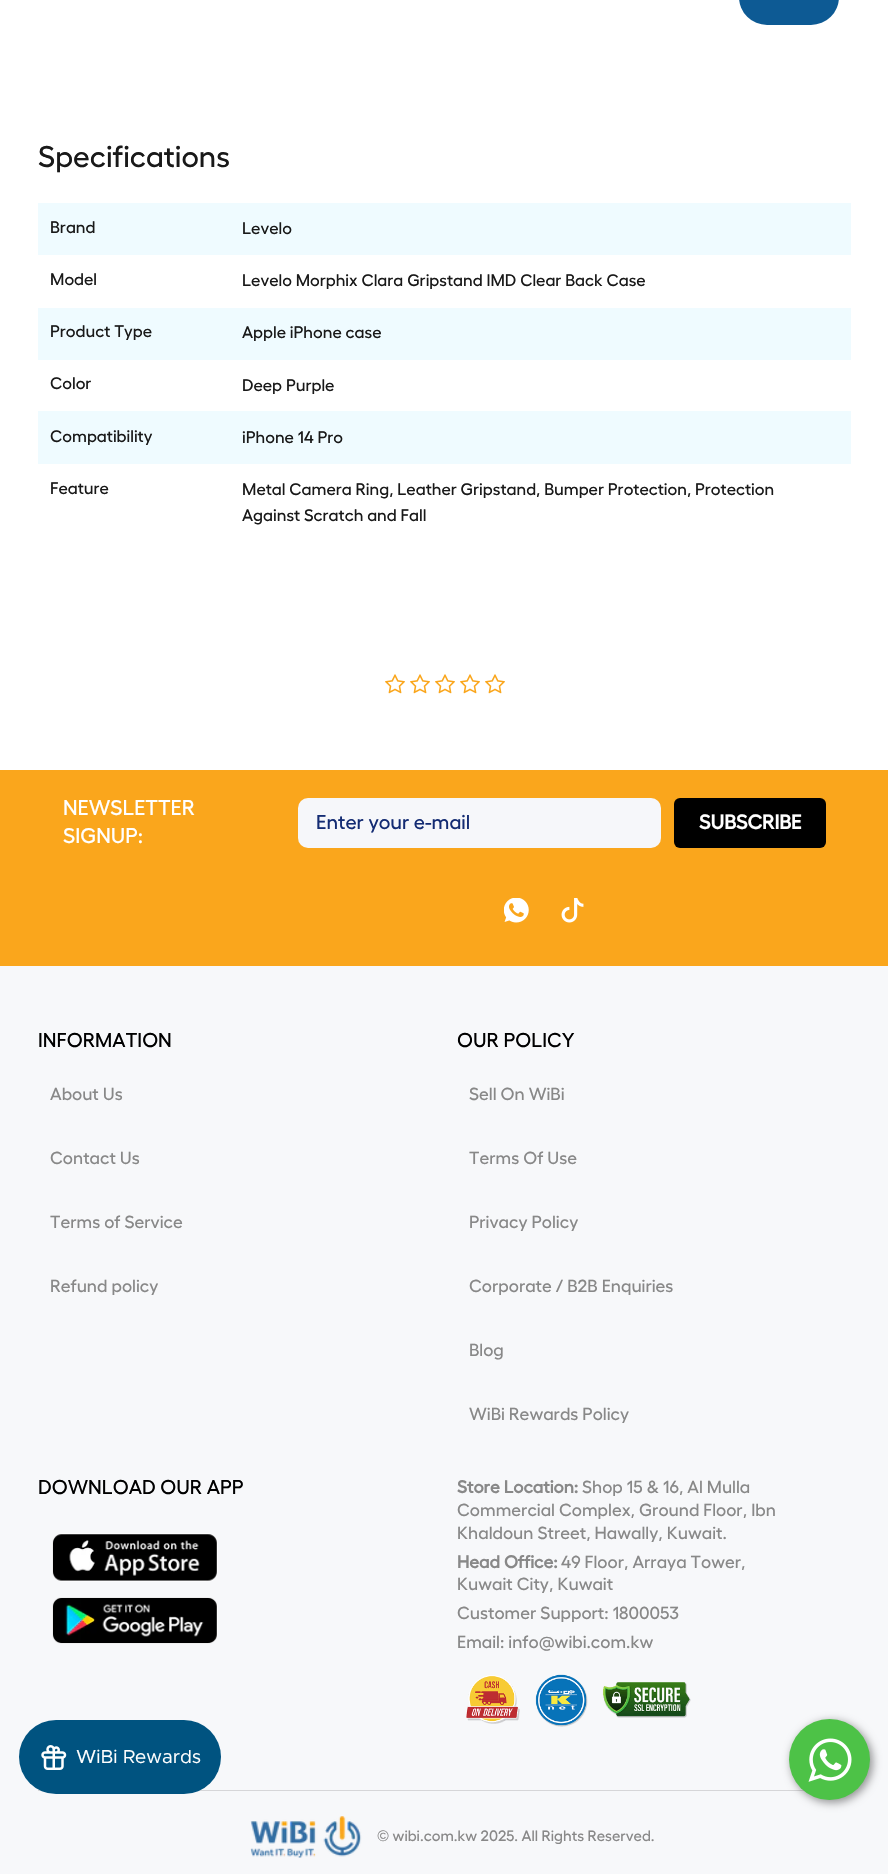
#include "include/core/SkBlurTypes.h"
#include "include/core/SkCanvas.h"
#include "include/core/SkData.h"
#include "include/core/SkFont.h"
#include "include/core/SkFontMgr.h"
#include "include/core/SkImage.h"
#include "include/core/SkMaskFilter.h"
#include "include/core/SkPaint.h"
#include "include/core/SkPathBuilder.h"
#include "include/core/SkTextBlob.h"
#include "include/effects/SkDashPathEffect.h"
#include "include/effects/SkGradientShader.h"
#include "include/utils/SkParsePath.h"

extern sk_sp<SkFontMgr> fontMgr;

static SkFont font(const char* family, int weight, float size, bool italic = false) {
    SkFontStyle style(weight, SkFontStyle::kNormal_Width,
        italic ? SkFontStyle::kItalic_Slant : SkFontStyle::kUpright_Slant);
    SkFont result(fontMgr->matchFamilyStyle(family, style), size);
    result.setSubpixel(true);
    return result;
}

static void drawLabel(SkCanvas* canvas, const char* s, float x, float y, const SkFont& font, SkColor color) {
    SkPaint ink(SkColor4f::FromColor(color));
    ink.setAntiAlias(true);
    canvas->drawString(s, x, y, font, ink);
}

static void fillRect(SkCanvas* canvas, float x, float y, float w, float h, SkColor color) {
    SkPaint ink(SkColor4f::FromColor(color));
    ink.setAntiAlias(true);
    canvas->drawRect(SkRect::MakeXYWH(x, y, w, h), ink);
}

static void fillRRect(SkCanvas* canvas, float x, float y, float w, float h, float radius, SkColor color) {
    SkPaint ink(SkColor4f::FromColor(color));
    ink.setAntiAlias(true);
    canvas->drawRoundRect(SkRect::MakeXYWH(x, y, w, h), radius, radius, ink);
}

static void drawPhoto(SkCanvas* canvas, const char* path, float x, float y, float w, float h) {
    auto image = SkImages::DeferredFromEncodedData(SkData::MakeFromFileName(path));
    canvas->drawImageRect(image, SkRect::MakeXYWH(x, y, w, h), SkSamplingOptions());
}

void draw(SkCanvas* canvas) {
    SkPaint paint;
    paint.setAntiAlias(true);
    canvas->clear(0xFFFFFFFF);
    fillRRect(canvas, 739, -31, 100, 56, 31, 0xFF0D5A94);
    SkFont font1 = font("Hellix", 500, 30);
    drawLabel(canvas, "Specifications", 38, 167, font1, 0xFF191919);
    fillRect(canvas, 38, 203, 813, 52, 0xFFEFFBFF);
    SkFont font2 = font("Hellix", 500, 16.7f);
    drawLabel(canvas, "Brand", 50, 233, font2, 0xFF191919);
    drawLabel(canvas, "Levelo", 242, 234, font2, 0xFF191919);
    drawLabel(canvas, "Model", 50, 285, font2, 0xFF191919);
    drawLabel(canvas, "Levelo Morphix Clara Gripstand IMD Clear Back Case", 242, 286, font2, 0xFF191919);
    fillRect(canvas, 38, 308, 813, 52, 0xFFEFFBFF);
    drawLabel(canvas, "Product Type", 50, 337, font2, 0xFF191919);
    drawLabel(canvas, "Apple iPhone case", 242, 338, font2, 0xFF191919);
    drawLabel(canvas, "Color", 50, 389, font2, 0xFF191919);
    drawLabel(canvas, "Deep Purple", 242, 391, font2, 0xFF191919);
    fillRect(canvas, 38, 411, 813, 53, 0xFFEFFBFF);
    drawLabel(canvas, "Compatibility", 50, 442, font2, 0xFF191919);
    drawLabel(canvas, "iPhone 14 Pro", 242, 443, font2, 0xFF191919);
    drawLabel(canvas, "Feature", 50, 494, font2, 0xFF191919);
    drawLabel(canvas, "Metal Camera Ring, Leather Gripstand, Bumper Protection, Protection", 242, 495, font2, 0xFF191919);
    drawLabel(canvas, "Against Scratch and Fall", 242, 521, font2, 0xFF191919);
    drawPhoto(canvas, "assets/img1.png", 385, 674, 20, 20);
    drawPhoto(canvas, "assets/img1.png", 410, 674, 20, 20);
    drawPhoto(canvas, "assets/img1.png", 435, 674, 20, 20);
    drawPhoto(canvas, "assets/img1.png", 460, 674, 20, 20);
    drawPhoto(canvas, "assets/img1.png", 485, 674, 20, 20);
    fillRect(canvas, 0, 770, 888, 196, 0xFFFAA61C);
    SkFont font3 = font("Hellix", 500, 21.25f);
    drawLabel(canvas, "NEWSLETTER", 63, 815, font3, 0xFFFFFFFF);
    drawLabel(canvas, "SIGNUP:", 63, 843, font3, 0xFFFFFFFF);
    fillRRect(canvas, 298, 798, 363, 50, 10, 0xFFF6F7FA);
    SkFont font4 = font("Hellix", 500, 20);
    drawLabel(canvas, "Enter your e-mail", 316, 829, font4, 0xFF142C73);
    fillRRect(canvas, 674, 798, 152, 50, 6, 0xFF000000);
    SkFont font5 = font("Hellix", 700, 20);
    drawLabel(canvas, "SUBSCRIBE", 699, 829, font5, 0xFFFFFFFF);
    drawPhoto(canvas, "assets/img2.png", 504, 898, 25, 25);
    drawPhoto(canvas, "assets/img3.png", 561, 898, 23, 25);
    fillRect(canvas, 0, 966, 888, 908, 0xFFF7F8FA);
    drawLabel(canvas, "INFORMATION", 38, 1047, font4, 0xFF000000);
    SkFont font6 = font("Hellix", 500, 17.5f);
    drawLabel(canvas, "About Us", 50, 1100, font6, 0xFF888888);
    drawLabel(canvas, "Contact Us", 50, 1164, font6, 0xFF888888);
    drawLabel(canvas, "Terms of Service", 50, 1228, font6, 0xFF888888);
    drawLabel(canvas, "Refund policy", 50, 1292, font6, 0xFF888888);
    drawLabel(canvas, "OUR POLICY", 457, 1047, font4, 0xFF000000);
    drawLabel(canvas, "Sell On WiBi", 469, 1100, font6, 0xFF888888);
    drawLabel(canvas, "Terms Of Use", 469, 1164, font6, 0xFF888888);
    drawLabel(canvas, "Privacy Policy", 469, 1228, font6, 0xFF888888);
    drawLabel(canvas, "Corporate / B2B Enquiries", 469, 1292, font6, 0xFF888888);
    drawLabel(canvas, "Blog", 469, 1356, font6, 0xFF888888);
    drawLabel(canvas, "WiBi Rewards Policy", 469, 1420, font6, 0xFF888888);
    drawLabel(canvas, "DOWNLOAD OUR APP", 38, 1494, font4, 0xFF000000);
    drawPhoto(canvas, "assets/img4.png", 52, 1533, 166, 49);
    drawPhoto(canvas, "assets/img5.png", 52, 1597, 166, 47);
    SkFont font7 = font("Hellix", 700, 17.5f);
    drawLabel(canvas, "Store Location:", 457, 1493, font7, 0xFF888888);
    drawLabel(canvas, "Shop 15 & 16, Al Mulla", 582, 1493, font6, 0xFF888888);
    drawLabel(canvas, "Commercial Complex, Ground Floor, Ibn", 457, 1516, font6, 0xFF888888);
    drawLabel(canvas, "Khaldoun Street, Hawally, Kuwait.", 457, 1539, font6, 0xFF888888);
    drawLabel(canvas, "Head Office:", 457, 1568, font7, 0xFF888888);
    drawLabel(canvas, "49 Floor, Arraya Tower,", 561, 1568, font6, 0xFF888888);
    drawLabel(canvas, "Kuwait City, Kuwait", 457, 1590, font6, 0xFF888888);
    drawLabel(canvas, "Customer Support: 1800053", 457, 1619, font6, 0xFF888888);
    drawLabel(canvas, "Email: info@wibi.com.kw", 457, 1648, font6, 0xFF888888);
    drawPhoto(canvas, "assets/img6.png", 466, 1674, 225, 53);
    fillRect(canvas, 38, 1790, 766, 1, 0xFFD6D6D8);
    drawPhoto(canvas, "assets/img7.png", 250, 1816, 112, 42);
    SkFont font8 = font("Hellix", 500, 15);
    drawLabel(canvas, "© wibi.com.kw 2025. All Rights Reserved.", 377, 1841, font8, 0xFF888888);
    paint.setColor(0x66000000);
    paint.setMaskFilter(SkMaskFilter::MakeBlur(kNormal_SkBlurStyle, 4));
    canvas->drawRoundRect(SkRect::MakeXYWH(791, 1721, 82, 82), 41, 41, paint);
    paint.setMaskFilter(nullptr);
    paint.setColor(0xFF4DC247);
    canvas->drawCircle(829.5f, 1759.5f, 40.5f, paint);
    drawPhoto(canvas, "assets/img8.png", 808, 1738, 44, 44);
    fillRRect(canvas, 19, 1720, 202, 74, 37, 0xFF005380);
    drawPhoto(canvas, "assets/img9.png", 41, 1745, 26, 25);
    SkFont font9 = font("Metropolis", 400, 18.75f);
    drawLabel(canvas, "WiBi Rewards", 76, 1763, font9, 0xFFFFFFFF);
}
